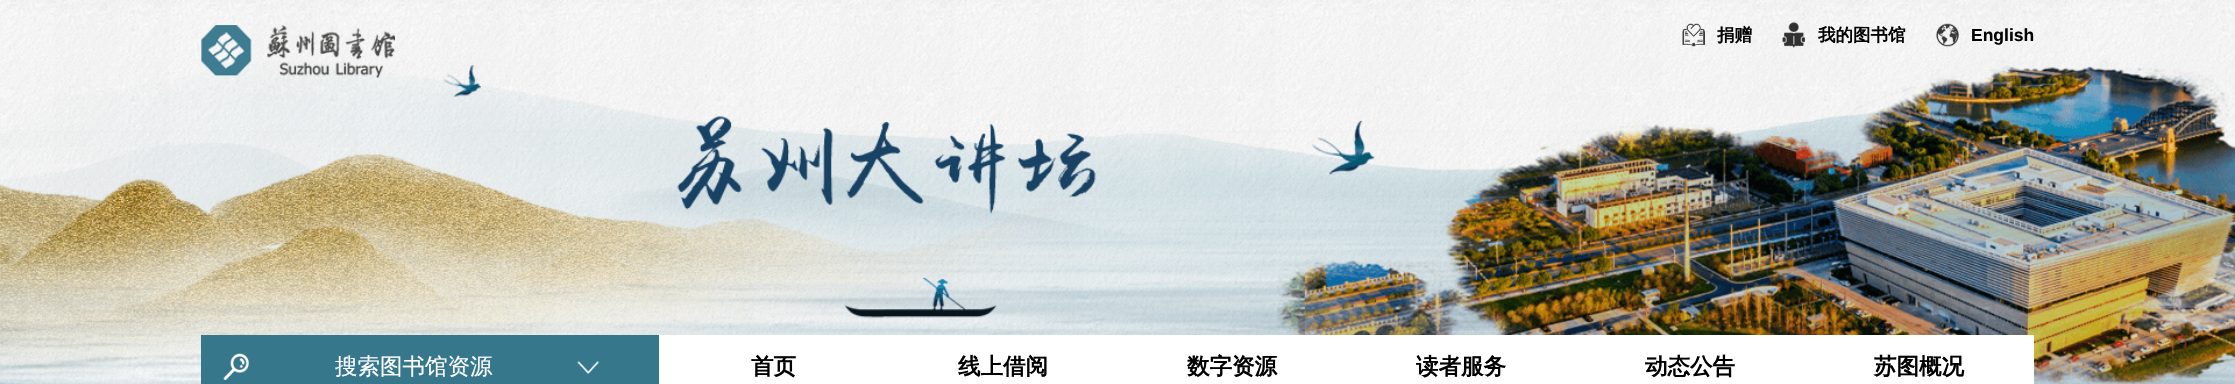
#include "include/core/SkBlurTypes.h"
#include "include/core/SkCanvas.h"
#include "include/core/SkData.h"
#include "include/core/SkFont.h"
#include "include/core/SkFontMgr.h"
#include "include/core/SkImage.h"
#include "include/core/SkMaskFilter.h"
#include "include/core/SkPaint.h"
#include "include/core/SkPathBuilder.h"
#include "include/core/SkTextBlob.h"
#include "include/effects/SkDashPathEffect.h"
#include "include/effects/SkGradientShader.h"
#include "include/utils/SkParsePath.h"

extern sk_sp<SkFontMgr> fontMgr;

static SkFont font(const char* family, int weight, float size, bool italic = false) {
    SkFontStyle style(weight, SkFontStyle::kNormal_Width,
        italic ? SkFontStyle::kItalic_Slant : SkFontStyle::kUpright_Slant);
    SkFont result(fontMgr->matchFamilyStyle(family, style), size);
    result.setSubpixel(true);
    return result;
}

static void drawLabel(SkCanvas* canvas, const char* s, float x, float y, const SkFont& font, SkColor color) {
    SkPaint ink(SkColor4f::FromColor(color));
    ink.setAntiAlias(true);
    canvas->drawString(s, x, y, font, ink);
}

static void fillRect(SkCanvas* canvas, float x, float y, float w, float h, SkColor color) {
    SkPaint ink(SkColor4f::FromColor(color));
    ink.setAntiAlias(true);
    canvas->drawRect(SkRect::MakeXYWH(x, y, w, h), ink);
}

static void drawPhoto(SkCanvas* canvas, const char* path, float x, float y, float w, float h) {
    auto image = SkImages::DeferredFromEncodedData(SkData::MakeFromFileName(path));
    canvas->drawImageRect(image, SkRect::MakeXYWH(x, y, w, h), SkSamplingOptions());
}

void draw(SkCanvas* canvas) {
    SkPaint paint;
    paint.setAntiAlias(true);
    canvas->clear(0xFFFFFFFF);
    drawPhoto(canvas, "assets/img1.png", 0, 0, 2235, 384);
    drawPhoto(canvas, "assets/img2.png", 201, 25, 194, 53);
    drawPhoto(canvas, "assets/img3.png", 1682, 23, 23, 24);
    SkFont font1 = font("WenQuanYi Zen Hei", 700, 17.5f);
    drawLabel(canvas, "捐赠", 1717, 41, font1, 0xFF000000);
    drawPhoto(canvas, "assets/img4.png", 1782, 22, 23, 26);
    drawLabel(canvas, "我的图书馆", 1818, 41, font1, 0xFF000000);
    drawPhoto(canvas, "assets/img5.png", 1936, 23, 23, 24);
    SkFont font2 = font("Liberation Sans", 700, 17.5f);
    drawLabel(canvas, "English", 1971, 41, font2, 0xFF000000);
    fillRect(canvas, 201, 335, 458, 49, 0xFF36778C);
    drawPhoto(canvas, "assets/img6.png", 223, 353, 26, 27);
    drawPhoto(canvas, "assets/img7.png", 577, 361, 22, 13);
    SkFont font3 = font("WenQuanYi Zen Hei", 500, 22.5f);
    drawLabel(canvas, "搜索图书馆资源", 335, 374, font3, 0xFFFFFFFF);
    fillRect(canvas, 659, 335, 1375, 49, 0xFFFFFFFF);
    SkFont font4 = font("WenQuanYi Zen Hei", 700, 22.5f);
    drawLabel(canvas, "首页", 751, 374, font4, 0xFF000000);
    drawLabel(canvas, "线上借阅", 958, 374, font4, 0xFF000000);
    drawLabel(canvas, "数字资源", 1187, 374, font4, 0xFF000000);
    drawLabel(canvas, "读者服务", 1416, 374, font4, 0xFF000000);
    drawLabel(canvas, "动态公告", 1645, 374, font4, 0xFF000000);
    drawLabel(canvas, "苏图概况", 1874, 374, font4, 0xFF000000);
}
